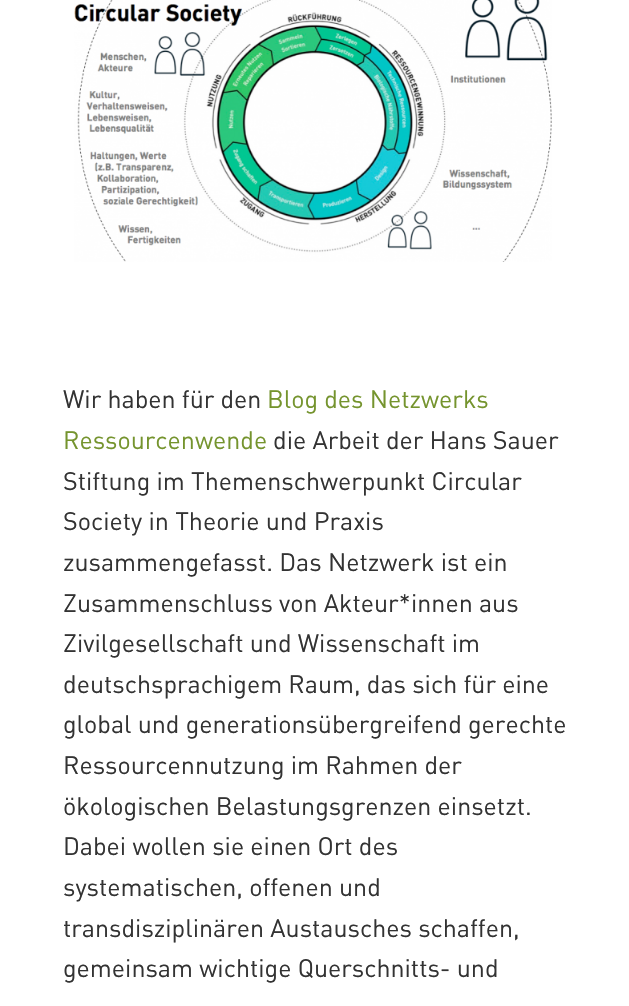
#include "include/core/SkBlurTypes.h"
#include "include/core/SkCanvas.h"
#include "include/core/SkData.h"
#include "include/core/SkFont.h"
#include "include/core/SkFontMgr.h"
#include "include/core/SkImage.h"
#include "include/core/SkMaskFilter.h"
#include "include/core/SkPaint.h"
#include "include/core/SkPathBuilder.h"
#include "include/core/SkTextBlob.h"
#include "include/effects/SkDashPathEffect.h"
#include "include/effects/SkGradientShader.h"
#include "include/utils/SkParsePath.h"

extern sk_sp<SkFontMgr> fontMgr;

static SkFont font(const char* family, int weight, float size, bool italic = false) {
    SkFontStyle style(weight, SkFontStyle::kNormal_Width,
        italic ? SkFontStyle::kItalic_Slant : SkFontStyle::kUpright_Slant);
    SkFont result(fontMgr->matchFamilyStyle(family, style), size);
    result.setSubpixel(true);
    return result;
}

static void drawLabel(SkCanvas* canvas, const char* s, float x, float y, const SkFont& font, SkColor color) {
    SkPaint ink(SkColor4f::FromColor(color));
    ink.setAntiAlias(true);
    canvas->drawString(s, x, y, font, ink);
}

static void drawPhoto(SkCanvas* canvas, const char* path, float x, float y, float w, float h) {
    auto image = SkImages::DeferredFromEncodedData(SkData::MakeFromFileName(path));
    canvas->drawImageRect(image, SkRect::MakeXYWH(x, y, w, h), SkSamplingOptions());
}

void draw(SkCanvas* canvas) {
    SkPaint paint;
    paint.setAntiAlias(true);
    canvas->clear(0xFFFFFFFF);
    drawPhoto(canvas, "assets/img1.png", 74, 0, 478, 262);
    SkFont font1 = font("DIN", 400, 25);
    drawLabel(canvas, "Wir haben für den", 63, 408, font1, 0xFF333333);
    drawLabel(canvas, "Blog des Netzwerks", 267, 408, font1, 0xFF75942E);
    drawLabel(canvas, "Ressourcenwende", 63, 449, font1, 0xFF75942E);
    drawLabel(canvas, "die Arbeit der Hans Sauer", 273, 449, font1, 0xFF333333);
    drawLabel(canvas, "Stiftung im Themenschwerpunkt Circular", 63, 490, font1, 0xFF333333);
    drawLabel(canvas, "Society in Theorie und Praxis", 63, 530, font1, 0xFF333333);
    drawLabel(canvas, "zusammengefasst. Das Netzwerk ist ein", 63, 571, font1, 0xFF333333);
    drawLabel(canvas, "Zusammenschluss von Akteur*innen aus", 63, 612, font1, 0xFF333333);
    drawLabel(canvas, "Zivilgesellschaft und Wissenschaft im", 63, 652, font1, 0xFF333333);
    drawLabel(canvas, "deutschsprachigem Raum, das sich für eine", 63, 693, font1, 0xFF333333);
    drawLabel(canvas, "global und generationsübergreifend gerechte", 63, 733, font1, 0xFF333333);
    drawLabel(canvas, "Ressourcennutzung im Rahmen der", 63, 774, font1, 0xFF333333);
    drawLabel(canvas, "ökologischen Belastungsgrenzen einsetzt.", 63, 815, font1, 0xFF333333);
    drawLabel(canvas, "Dabei wollen sie einen Ort des", 63, 855, font1, 0xFF333333);
    drawLabel(canvas, "systematischen, offenen und", 63, 896, font1, 0xFF333333);
    drawLabel(canvas, "transdisziplinären Austausches schaffen,", 63, 937, font1, 0xFF333333);
    drawLabel(canvas, "gemeinsam wichtige Querschnitts- und", 63, 977, font1, 0xFF333333);
}
